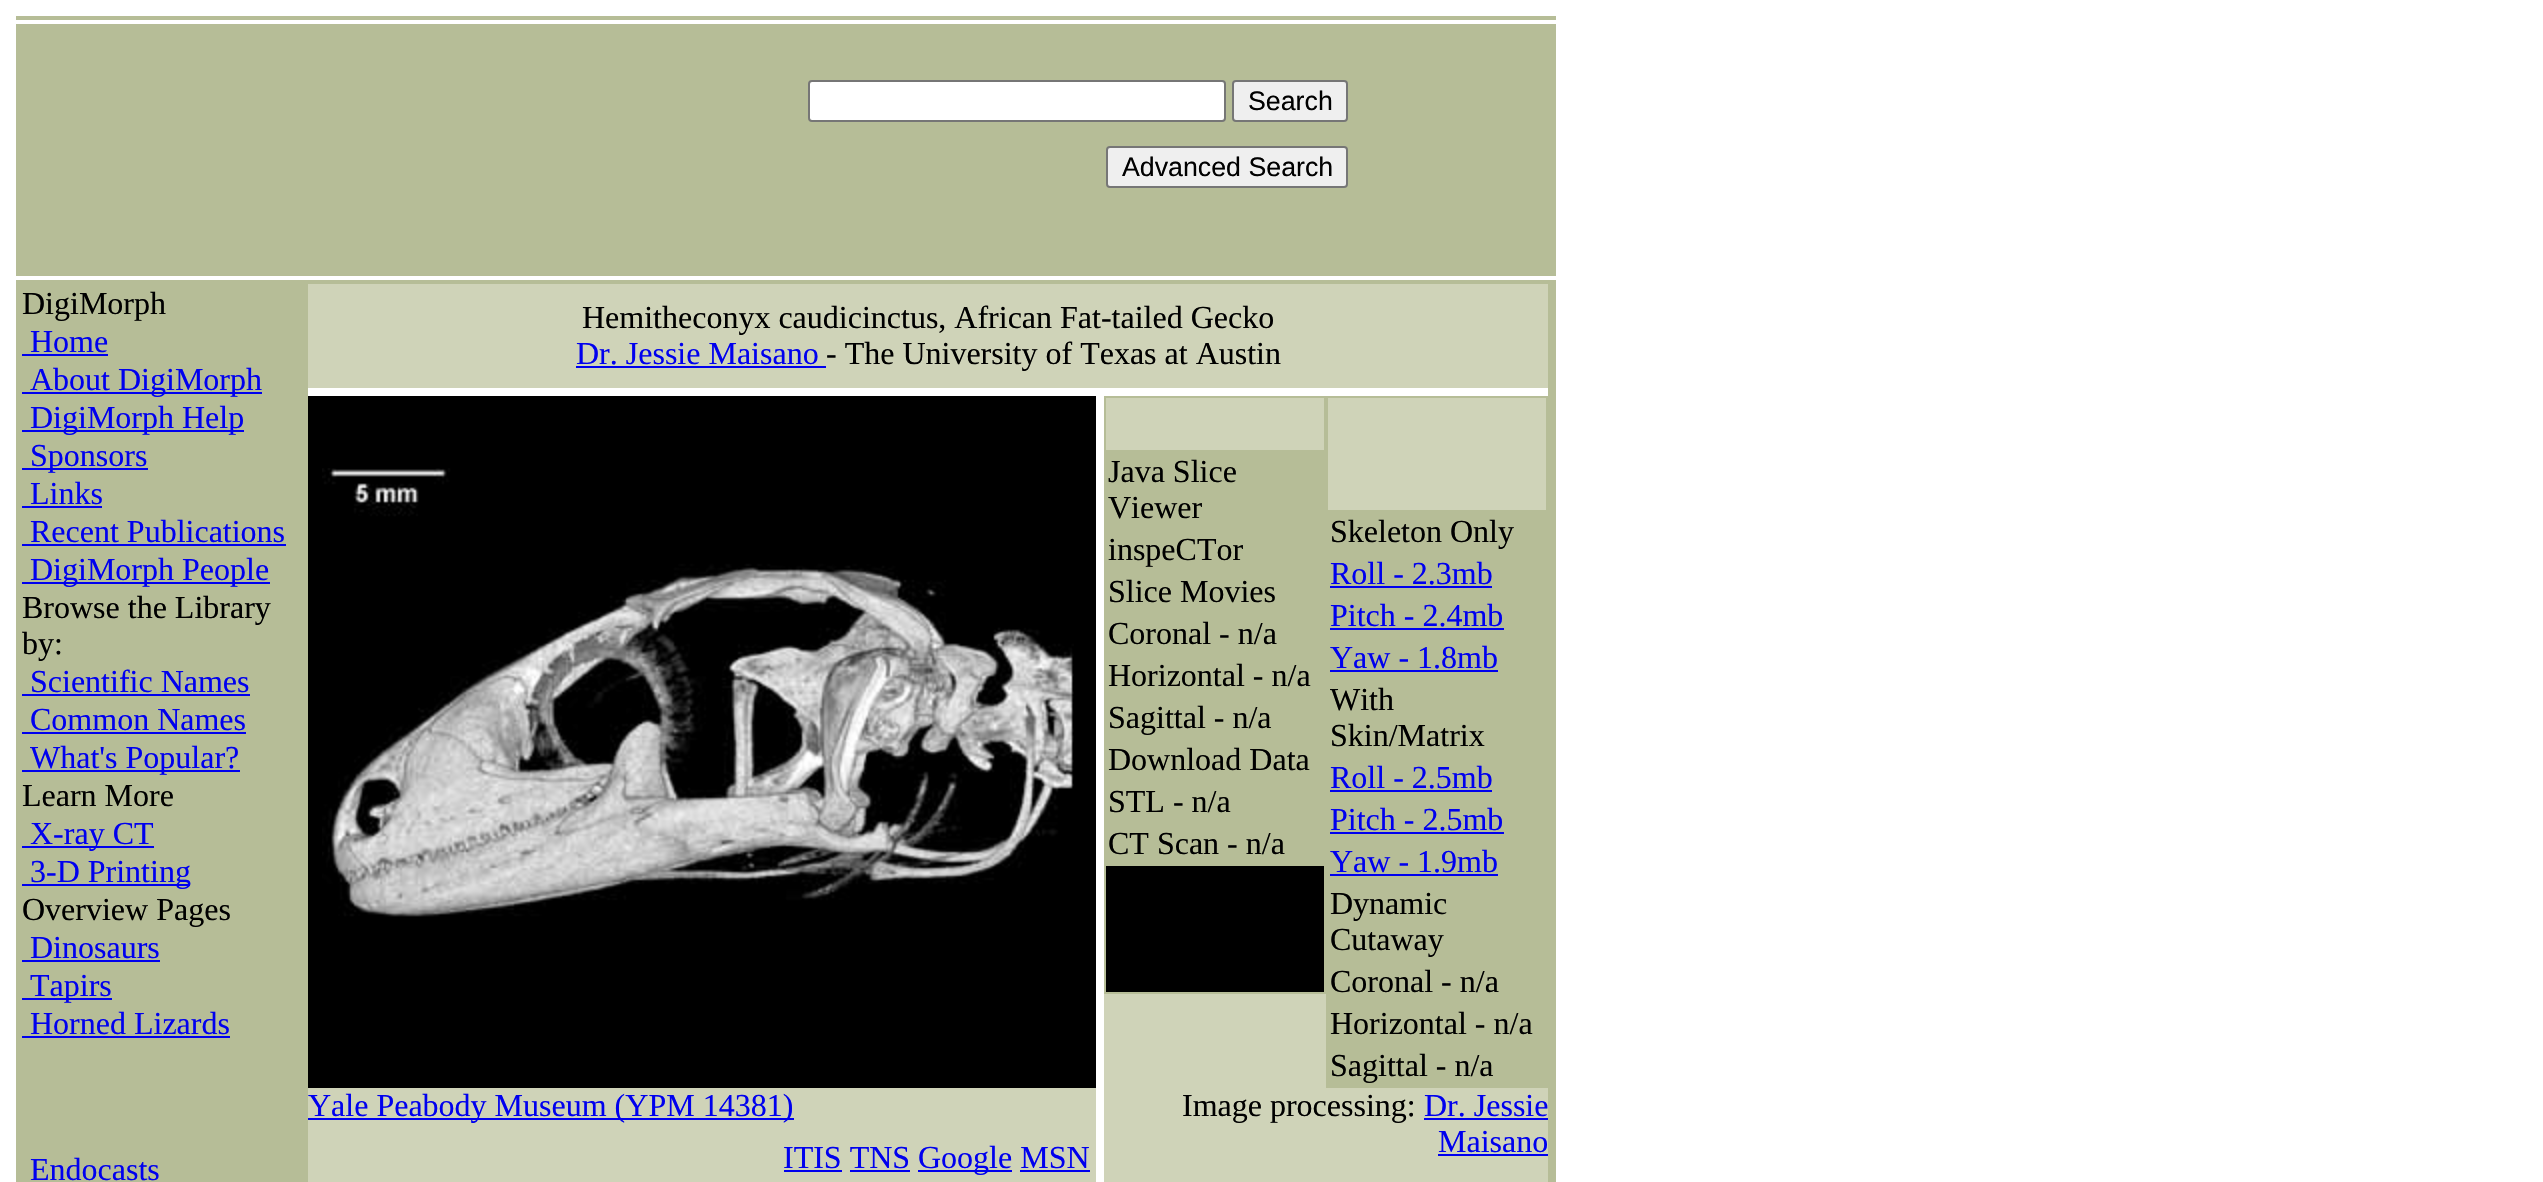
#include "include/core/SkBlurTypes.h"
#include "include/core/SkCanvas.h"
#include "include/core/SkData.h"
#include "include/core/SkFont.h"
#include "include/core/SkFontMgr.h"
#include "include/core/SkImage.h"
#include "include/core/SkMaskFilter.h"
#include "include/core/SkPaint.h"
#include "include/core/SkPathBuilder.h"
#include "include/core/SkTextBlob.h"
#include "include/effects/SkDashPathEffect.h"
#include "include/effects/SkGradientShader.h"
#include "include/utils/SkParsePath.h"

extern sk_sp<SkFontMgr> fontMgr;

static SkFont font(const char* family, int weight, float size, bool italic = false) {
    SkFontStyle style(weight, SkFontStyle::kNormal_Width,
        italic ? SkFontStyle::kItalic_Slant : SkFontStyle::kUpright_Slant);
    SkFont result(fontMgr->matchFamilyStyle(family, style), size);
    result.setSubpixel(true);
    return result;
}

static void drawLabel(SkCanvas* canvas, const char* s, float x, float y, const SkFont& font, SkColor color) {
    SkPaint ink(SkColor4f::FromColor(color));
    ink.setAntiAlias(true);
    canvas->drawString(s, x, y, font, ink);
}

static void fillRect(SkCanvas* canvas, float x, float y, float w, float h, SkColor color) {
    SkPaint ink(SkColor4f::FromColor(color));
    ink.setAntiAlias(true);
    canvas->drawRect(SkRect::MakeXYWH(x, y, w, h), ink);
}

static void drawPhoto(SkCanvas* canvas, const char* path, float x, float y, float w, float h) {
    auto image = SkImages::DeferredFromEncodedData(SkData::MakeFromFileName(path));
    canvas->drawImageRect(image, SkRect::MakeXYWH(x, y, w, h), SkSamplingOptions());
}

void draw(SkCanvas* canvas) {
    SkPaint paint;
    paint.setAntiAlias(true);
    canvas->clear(0xFFFFFFFF);
    fillRect(canvas, 16, 16, 1540, 4, 0xFFB6BD97);
    fillRect(canvas, 16, 24, 1540, 252, 0xFFB6BD97);
    paint.setColor(0xFFFFFFFF);
    canvas->drawRoundRect(SkRect::MakeXYWH(809, 81, 416, 40), 3, 3, paint);
    paint.setStroke(true);
    paint.setStrokeWidth(2);
    paint.setColor(0xFF767676);
    canvas->drawRoundRect(SkRect::MakeXYWH(809, 81, 416, 40), 3, 3, paint);
    paint.setStroke(false);
    paint.setColor(0xFFEFEFEF);
    canvas->drawRoundRect(SkRect::MakeXYWH(1233, 81, 114, 40), 3, 3, paint);
    paint.setStroke(true);
    paint.setColor(0xFF767676);
    canvas->drawRoundRect(SkRect::MakeXYWH(1233, 81, 114, 40), 3, 3, paint);
    SkFont font1 = font("Liberation Sans", 400, 26.75f);
    drawLabel(canvas, "Search", 1248, 110, font1, 0xFF000000);
    paint.setStroke(false);
    paint.setColor(0xFFEFEFEF);
    canvas->drawRoundRect(SkRect::MakeXYWH(1107, 147, 240, 40), 3, 3, paint);
    paint.setStroke(true);
    paint.setColor(0xFF767676);
    canvas->drawRoundRect(SkRect::MakeXYWH(1107, 147, 240, 40), 3, 3, paint);
    drawLabel(canvas, "Advanced Search", 1122, 176, font1, 0xFF000000);
    fillRect(canvas, 16, 280, 1540, 902, 0xFFB6BD97);
    SkFont font2 = font("Liberation Serif", 400, 32);
    drawLabel(canvas, "DigiMorph", 22, 314, font2, 0xFF000000);
    drawLabel(canvas, "Home", 30, 352, font2, 0xFF0000EE);
    fillRect(canvas, 22, 354, 86, 2, 0xFF0000EE);
    fillRect(canvas, 22, 392, 240, 2, 0xFF0000EE);
    drawLabel(canvas, "About DigiMorph", 30, 390, font2, 0xFF0000EE);
    fillRect(canvas, 22, 430, 222, 2, 0xFF0000EE);
    drawLabel(canvas, "DigiMorph Help", 30, 428, font2, 0xFF0000EE);
    fillRect(canvas, 22, 468, 126, 2, 0xFF0000EE);
    drawLabel(canvas, "Sponsors", 30, 466, font2, 0xFF0000EE);
    drawLabel(canvas, "Links", 30, 504, font2, 0xFF0000EE);
    fillRect(canvas, 22, 506, 80, 2, 0xFF0000EE);
    drawLabel(canvas, "Recent Publications", 30, 542, font2, 0xFF0000EE);
    fillRect(canvas, 22, 544, 264, 2, 0xFF0000EE);
    fillRect(canvas, 22, 582, 248, 2, 0xFF0000EE);
    drawLabel(canvas, "DigiMorph People", 30, 580, font2, 0xFF0000EE);
    drawLabel(canvas, "Browse the Library", 22, 618, font2, 0xFF000000);
    drawLabel(canvas, "by:", 22, 654, font2, 0xFF000000);
    drawLabel(canvas, "Scientific Names", 30, 692, font2, 0xFF0000EE);
    fillRect(canvas, 22, 694, 228, 2, 0xFF0000EE);
    drawLabel(canvas, "Common Names", 30, 730, font2, 0xFF0000EE);
    fillRect(canvas, 22, 732, 224, 2, 0xFF0000EE);
    fillRect(canvas, 22, 770, 218, 2, 0xFF0000EE);
    drawLabel(canvas, "What's Popular?", 30, 768, font2, 0xFF0000EE);
    drawLabel(canvas, "Learn More", 22, 806, font2, 0xFF000000);
    fillRect(canvas, 22, 846, 132, 2, 0xFF0000EE);
    drawLabel(canvas, "X-ray CT", 30, 844, font2, 0xFF0000EE);
    fillRect(canvas, 22, 884, 168, 2, 0xFF0000EE);
    drawLabel(canvas, "3-D Printing", 30, 882, font2, 0xFF0000EE);
    drawLabel(canvas, "Overview Pages", 22, 920, font2, 0xFF000000);
    drawLabel(canvas, "Dinosaurs", 30, 958, font2, 0xFF0000EE);
    fillRect(canvas, 22, 960, 138, 2, 0xFF0000EE);
    fillRect(canvas, 22, 998, 90, 2, 0xFF0000EE);
    drawLabel(canvas, "Tapirs", 30, 996, font2, 0xFF0000EE);
    drawLabel(canvas, "Horned Lizards", 30, 1034, font2, 0xFF0000EE);
    fillRect(canvas, 22, 1036, 208, 2, 0xFF0000EE);
    drawLabel(canvas, "Endocasts", 30, 1180, font2, 0xFF0000EE);
    fillRect(canvas, 308, 284, 1240, 898, 0xFFCFD3B8);
    drawLabel(canvas, "Hemitheconyx caudicinctus, African Fat-tailed Gecko", 582, 328, font2, 0xFF000000);
    drawLabel(canvas, "Dr. Jessie Maisano", 576, 364, font2, 0xFF0000EE);
    drawLabel(canvas, "- The University of Texas at Austin", 826, 364, font2, 0xFF000000);
    fillRect(canvas, 576, 366, 250, 2, 0xFF0000EE);
    fillRect(canvas, 308, 388, 1240, 8, 0xFFFFFFFF);
    fillRect(canvas, 308, 396, 788, 692, 0xFF000000);
    drawPhoto(canvas, "assets/img1.png", 322, 468, 752, 449);
    fillRect(canvas, 1096, 396, 8, 786, 0xFFFFFFFF);
    fillRect(canvas, 1104, 396, 222, 598, 0xFFB6BD97);
    fillRect(canvas, 1106, 398, 218, 52, 0xFFCFD3B8);
    drawLabel(canvas, "Java Slice", 1108, 482, font2, 0xFF000000);
    drawLabel(canvas, "Viewer", 1108, 518, font2, 0xFF000000);
    drawLabel(canvas, "inspeCTor", 1108, 560, font2, 0xFF000000);
    drawLabel(canvas, "Slice Movies", 1108, 602, font2, 0xFF000000);
    drawLabel(canvas, "Coronal - n/a", 1108, 644, font2, 0xFF000000);
    drawLabel(canvas, "Horizontal - n/a", 1108, 686, font2, 0xFF000000);
    drawLabel(canvas, "Sagittal - n/a", 1108, 728, font2, 0xFF000000);
    drawLabel(canvas, "Download Data", 1108, 770, font2, 0xFF000000);
    drawLabel(canvas, "STL - n/a", 1108, 812, font2, 0xFF000000);
    drawLabel(canvas, "CT Scan - n/a", 1108, 854, font2, 0xFF000000);
    fillRect(canvas, 1106, 866, 218, 126, 0xFF000000);
    fillRect(canvas, 1326, 396, 222, 692, 0xFFB6BD97);
    fillRect(canvas, 1328, 398, 218, 112, 0xFFCFD3B8);
    drawLabel(canvas, "Skeleton Only", 1330, 542, font2, 0xFF000000);
    drawLabel(canvas, "Roll - 2.3mb", 1330, 584, font2, 0xFF0000EE);
    fillRect(canvas, 1330, 586, 162, 2, 0xFF0000EE);
    drawLabel(canvas, "Pitch - 2.4mb", 1330, 626, font2, 0xFF0000EE);
    fillRect(canvas, 1330, 628, 174, 2, 0xFF0000EE);
    drawLabel(canvas, "Yaw - 1.8mb", 1330, 668, font2, 0xFF0000EE);
    fillRect(canvas, 1330, 670, 168, 2, 0xFF0000EE);
    drawLabel(canvas, "With", 1330, 710, font2, 0xFF000000);
    drawLabel(canvas, "Skin/Matrix", 1330, 746, font2, 0xFF000000);
    drawLabel(canvas, "Roll - 2.5mb", 1330, 788, font2, 0xFF0000EE);
    fillRect(canvas, 1330, 790, 162, 2, 0xFF0000EE);
    drawLabel(canvas, "Pitch - 2.5mb", 1330, 830, font2, 0xFF0000EE);
    fillRect(canvas, 1330, 832, 174, 2, 0xFF0000EE);
    drawLabel(canvas, "Yaw - 1.9mb", 1330, 872, font2, 0xFF0000EE);
    fillRect(canvas, 1330, 874, 168, 2, 0xFF0000EE);
    drawLabel(canvas, "Dynamic", 1330, 914, font2, 0xFF000000);
    drawLabel(canvas, "Cutaway", 1330, 950, font2, 0xFF000000);
    drawLabel(canvas, "Coronal - n/a", 1330, 992, font2, 0xFF000000);
    drawLabel(canvas, "Horizontal - n/a", 1330, 1034, font2, 0xFF000000);
    drawLabel(canvas, "Sagittal - n/a", 1330, 1076, font2, 0xFF000000);
    fillRect(canvas, 308, 1118, 486, 2, 0xFF0000EE);
    drawLabel(canvas, "Yale Peabody Museum (YPM 14381)", 308, 1116, font2, 0xFF0000EE);
    drawLabel(canvas, "Image processing:", 1182, 1116, font2, 0xFF000000);
    drawLabel(canvas, "Dr. Jessie", 1424, 1116, font2, 0xFF0000EE);
    fillRect(canvas, 1424, 1118, 124, 2, 0xFF0000EE);
    drawLabel(canvas, "Maisano", 1438, 1152, font2, 0xFF0000EE);
    fillRect(canvas, 1438, 1154, 110, 2, 0xFF0000EE);
    drawLabel(canvas, "ITIS TNS", 783, 1168, font2, 0xFF0000EE);
    fillRect(canvas, 784, 1170, 58, 2, 0xFF0000EE);
    fillRect(canvas, 918, 1170, 94, 2, 0xFF0000EE);
    drawLabel(canvas, "Google MSN", 918, 1168, font2, 0xFF0000EE);
    fillRect(canvas, 850, 1170, 60, 2, 0xFF0000EE);
    fillRect(canvas, 1020, 1170, 70, 2, 0xFF0000EE);
}
